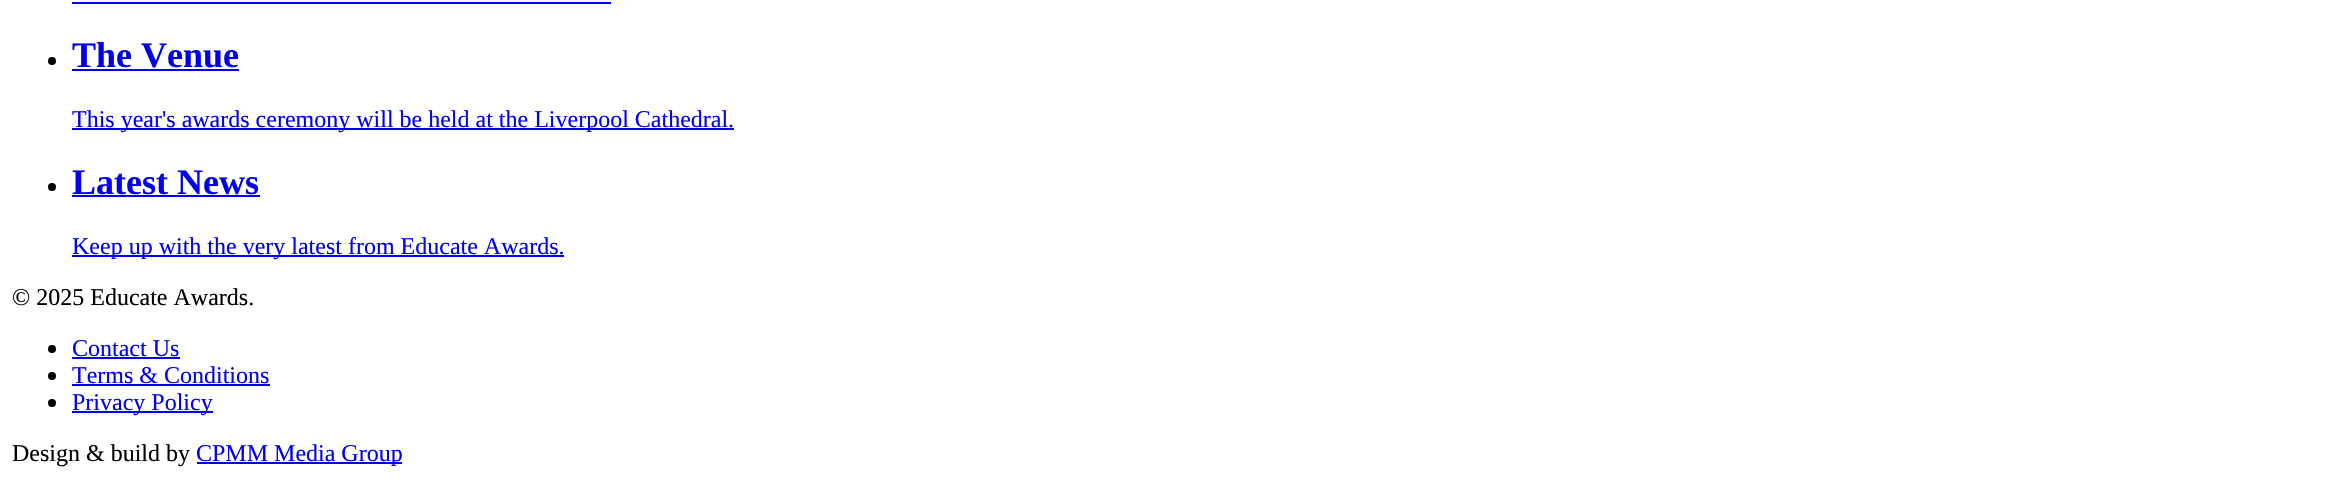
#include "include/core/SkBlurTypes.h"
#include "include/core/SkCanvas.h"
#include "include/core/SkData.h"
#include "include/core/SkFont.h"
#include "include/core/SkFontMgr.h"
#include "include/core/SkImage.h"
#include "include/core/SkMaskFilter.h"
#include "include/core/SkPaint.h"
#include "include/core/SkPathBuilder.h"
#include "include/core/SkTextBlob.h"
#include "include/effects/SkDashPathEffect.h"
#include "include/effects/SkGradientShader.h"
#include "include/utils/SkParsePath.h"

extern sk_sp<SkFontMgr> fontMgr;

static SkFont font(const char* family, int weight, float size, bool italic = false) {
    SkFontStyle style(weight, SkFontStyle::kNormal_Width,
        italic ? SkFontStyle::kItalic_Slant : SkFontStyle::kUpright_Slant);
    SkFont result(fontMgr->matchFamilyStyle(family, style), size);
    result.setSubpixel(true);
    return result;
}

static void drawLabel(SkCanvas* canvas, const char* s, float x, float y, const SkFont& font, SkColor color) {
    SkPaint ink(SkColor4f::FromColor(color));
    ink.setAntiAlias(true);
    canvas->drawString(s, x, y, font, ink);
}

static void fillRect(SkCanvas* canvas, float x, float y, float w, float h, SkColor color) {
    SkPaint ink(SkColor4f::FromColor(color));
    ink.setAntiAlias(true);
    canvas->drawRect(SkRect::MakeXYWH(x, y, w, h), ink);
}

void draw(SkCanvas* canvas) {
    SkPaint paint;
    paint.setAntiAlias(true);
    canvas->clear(0xFFFFFFFF);
    fillRect(canvas, 72, 2, 539, 2, 0xFF0000EE);
    paint.setColor(0xFF000000);
    canvas->drawCircle(52, 61, 4, paint);
    SkFont font1 = font("Liberation Serif", 700, 36);
    drawLabel(canvas, "The Venue", 72, 67, font1, 0xFF0000EE);
    fillRect(canvas, 72, 69, 167, 2, 0xFF0000EE);
    fillRect(canvas, 72, 128, 662, 2, 0xFF0000EE);
    SkFont font2 = font("Liberation Serif", 400, 24);
    drawLabel(canvas, "This year's awards ceremony will be held at the Liverpool Cathedral.", 72, 127, font2, 0xFF0000EE);
    canvas->drawCircle(52, 187, 4, paint);
    drawLabel(canvas, "Latest News", 72, 194, font1, 0xFF0000EE);
    fillRect(canvas, 72, 195, 188, 2, 0xFF0000EE);
    fillRect(canvas, 72, 255, 492, 2, 0xFF0000EE);
    drawLabel(canvas, "Keep up with the very latest from Educate Awards.", 72, 254, font2, 0xFF0000EE);
    drawLabel(canvas, "© 2025 Educate Awards.", 12, 305, font2, 0xFF000000);
    canvas->drawCircle(52, 349, 4, paint);
    drawLabel(canvas, "Contact Us", 72, 356, font2, 0xFF0000EE);
    fillRect(canvas, 72, 357, 108, 2, 0xFF0000EE);
    canvas->drawCircle(52, 376, 4, paint);
    drawLabel(canvas, "Terms & Conditions", 72, 383, font2, 0xFF0000EE);
    fillRect(canvas, 72, 384, 198, 2, 0xFF0000EE);
    canvas->drawCircle(52, 403, 4, paint);
    fillRect(canvas, 72, 411, 141, 2, 0xFF0000EE);
    drawLabel(canvas, "Privacy Policy", 72, 410, font2, 0xFF0000EE);
    drawLabel(canvas, "Design & build by", 12, 461, font2, 0xFF000000);
    fillRect(canvas, 197, 462, 205, 2, 0xFF0000EE);
    drawLabel(canvas, "CPMM Media Group", 196, 461, font2, 0xFF0000EE);
}
